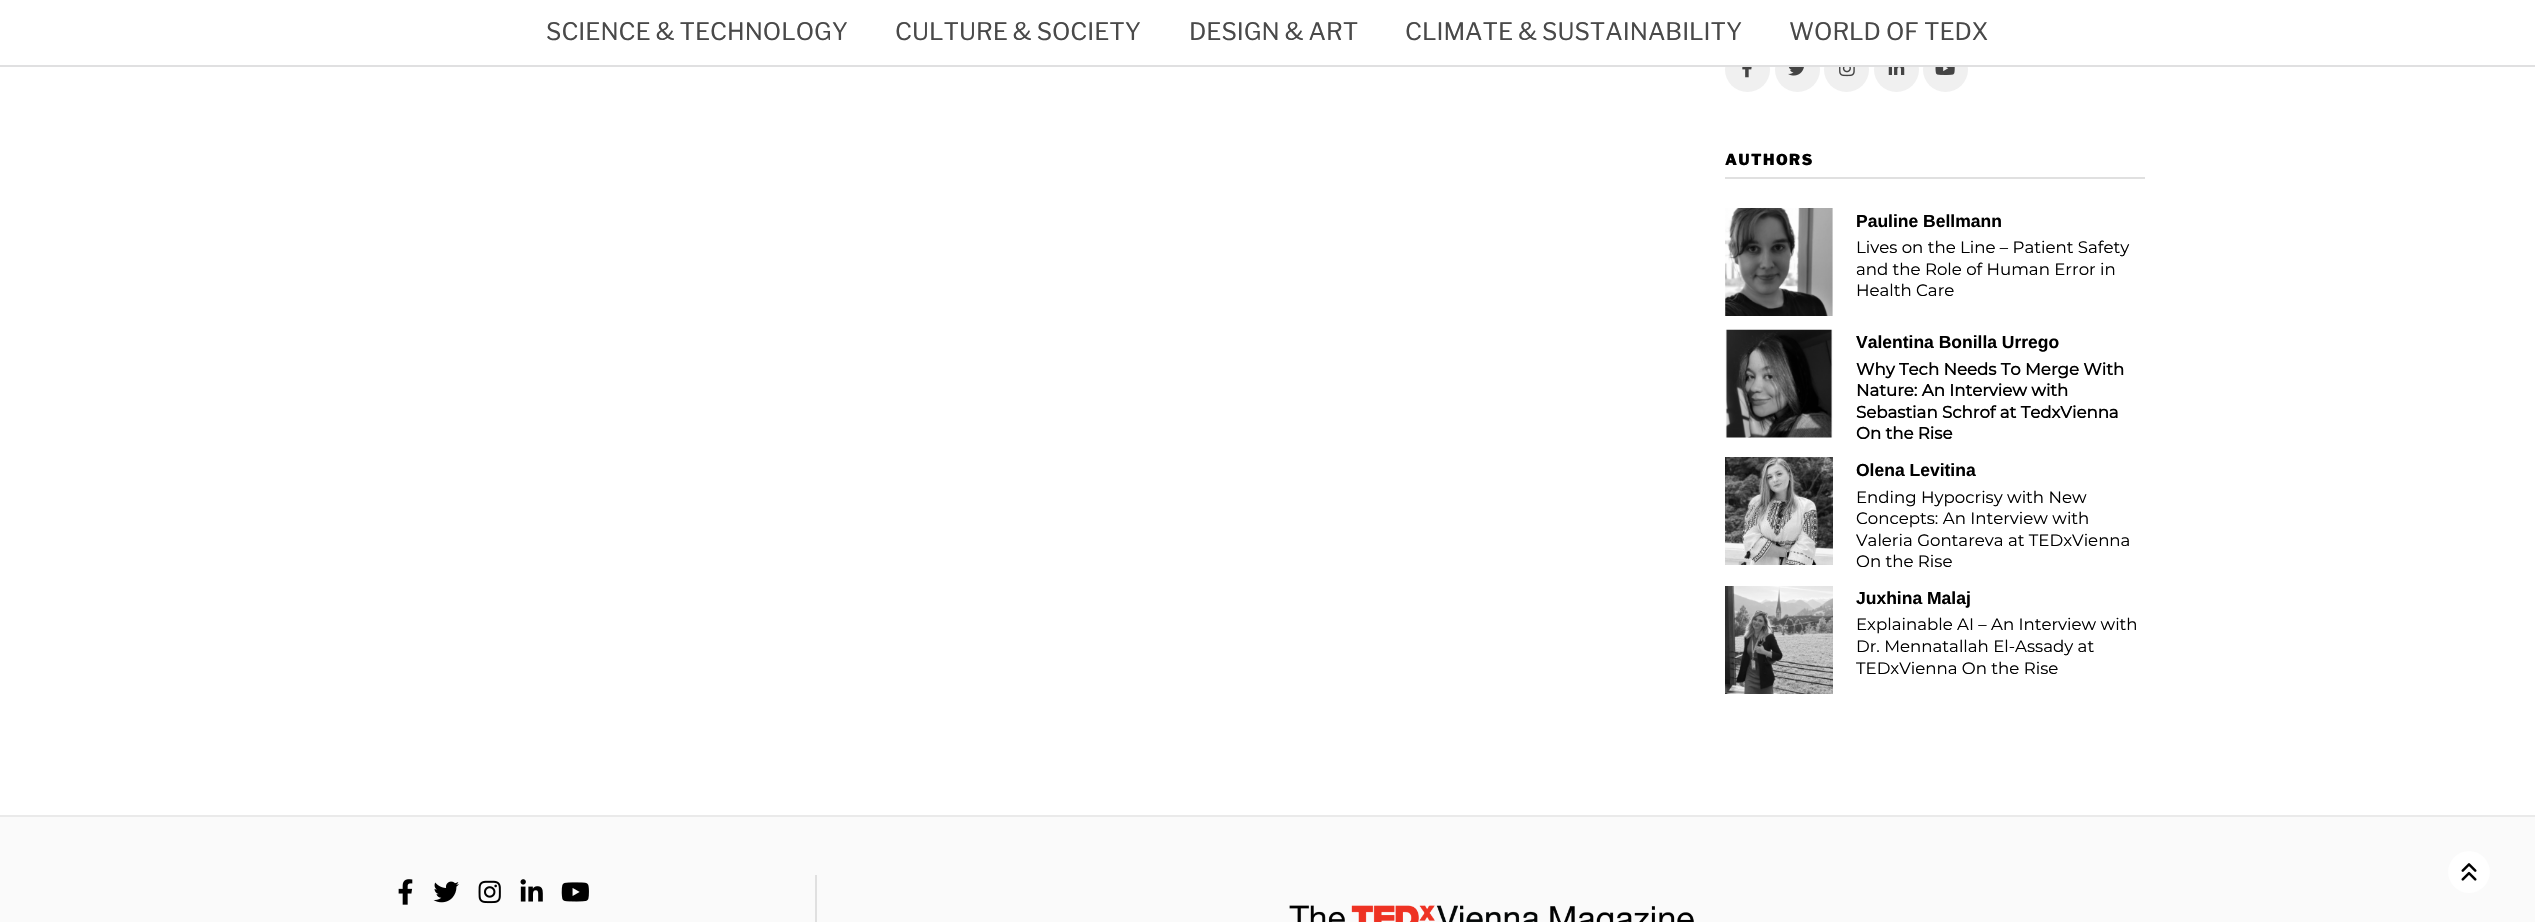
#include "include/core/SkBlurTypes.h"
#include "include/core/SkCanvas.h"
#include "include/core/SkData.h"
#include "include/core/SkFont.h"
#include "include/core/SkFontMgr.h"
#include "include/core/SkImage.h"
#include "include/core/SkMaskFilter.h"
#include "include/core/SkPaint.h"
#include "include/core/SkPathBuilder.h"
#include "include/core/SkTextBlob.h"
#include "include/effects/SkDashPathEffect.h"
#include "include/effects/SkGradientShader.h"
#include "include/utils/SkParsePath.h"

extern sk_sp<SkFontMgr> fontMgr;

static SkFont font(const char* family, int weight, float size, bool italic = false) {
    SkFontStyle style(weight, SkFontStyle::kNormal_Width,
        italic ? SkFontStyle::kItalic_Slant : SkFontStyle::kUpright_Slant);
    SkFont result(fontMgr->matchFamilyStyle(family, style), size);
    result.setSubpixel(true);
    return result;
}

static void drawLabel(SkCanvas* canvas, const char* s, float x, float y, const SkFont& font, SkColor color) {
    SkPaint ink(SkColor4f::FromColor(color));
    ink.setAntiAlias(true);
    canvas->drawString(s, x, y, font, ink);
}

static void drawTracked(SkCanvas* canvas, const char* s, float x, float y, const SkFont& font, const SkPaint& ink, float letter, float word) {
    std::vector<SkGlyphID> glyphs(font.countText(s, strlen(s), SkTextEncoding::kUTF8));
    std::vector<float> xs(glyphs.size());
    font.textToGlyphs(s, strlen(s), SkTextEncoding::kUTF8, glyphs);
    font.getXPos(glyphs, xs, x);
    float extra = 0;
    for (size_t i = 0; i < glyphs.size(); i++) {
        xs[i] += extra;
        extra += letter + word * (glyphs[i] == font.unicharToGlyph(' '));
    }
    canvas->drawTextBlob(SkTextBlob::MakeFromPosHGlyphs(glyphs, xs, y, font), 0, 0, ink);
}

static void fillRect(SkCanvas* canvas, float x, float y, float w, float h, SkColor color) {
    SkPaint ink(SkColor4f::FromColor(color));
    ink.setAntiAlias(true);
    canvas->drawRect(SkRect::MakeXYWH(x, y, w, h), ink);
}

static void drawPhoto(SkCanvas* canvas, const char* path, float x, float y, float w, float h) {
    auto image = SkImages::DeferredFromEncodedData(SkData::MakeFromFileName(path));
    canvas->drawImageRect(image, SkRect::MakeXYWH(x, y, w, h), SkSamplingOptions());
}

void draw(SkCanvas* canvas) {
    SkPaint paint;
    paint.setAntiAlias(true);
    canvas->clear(0xFFFFFFFF);
    paint.setColor(0xFFF0F0F0);
    canvas->drawCircle(1747.5f, 69.5f, 22.5f, paint);
    canvas->drawCircle(1797.5f, 69.5f, 22.5f, paint);
    canvas->drawCircle(1846.5f, 69.5f, 22.5f, paint);
    canvas->drawCircle(1896.5f, 69.5f, 22.5f, paint);
    canvas->drawCircle(1945.5f, 69.5f, 22.5f, paint);
    fillRect(canvas, 0, 65, 2535, 2, 0xFFE0E0E1);
    SkFont font1 = font("Libre Franklin", 400, 24);
    drawLabel(canvas, "SCIENCE & TECHNOLOGY", 546, 40, font1, 0xFF494949);
    drawLabel(canvas, "CULTURE & SOCIETY", 895, 40, font1, 0xFF494949);
    drawLabel(canvas, "DESIGN & ART", 1189, 40, font1, 0xFF494949);
    drawLabel(canvas, "CLIMATE & SUSTAINABILITY", 1405, 40, font1, 0xFF494949);
    drawLabel(canvas, "WORLD OF TEDX", 1789, 40, font1, 0xFF494949);
    fillRect(canvas, 1725, 47, 243, 18, 0xFFFFFFFF);
    drawPhoto(canvas, "assets/img1.png", 1742, 67, 10, 11);
    drawPhoto(canvas, "assets/img2.png", 1788, 67, 16, 9);
    drawPhoto(canvas, "assets/img3.png", 1839, 67, 16, 10);
    drawPhoto(canvas, "assets/img4.png", 1888, 67, 17, 8);
    drawPhoto(canvas, "assets/img5.png", 1935, 67, 20, 8);
    fillRect(canvas, 1725, 177, 420, 2, 0xFFE0E0E0);
    SkFont font2 = font("Libre Franklin", 900, 15);
    paint.setColor(0xFF000000);
    drawTracked(canvas, "AUTHORS", 1725, 165, font2, paint, 1.5f, 0);
    drawPhoto(canvas, "assets/img6.png", 1725, 208, 108, 108);
    SkFont font3 = font("Liberation Sans", 700, 17.5f);
    drawLabel(canvas, "Pauline Bellmann", 1856, 227, font3, 0xFF000000);
    SkFont font4 = font("Montserrat", 100, 16.6f);
    drawLabel(canvas, "Lives on the Line – Patient Safety", 1856, 253, font4, 0xFF000000);
    drawLabel(canvas, "and the Role of Human Error in", 1856, 275, font4, 0xFF000000);
    drawLabel(canvas, "Health Care", 1856, 296, font4, 0xFF000000);
    drawPhoto(canvas, "assets/img7.png", 1725, 329, 108, 109);
    drawLabel(canvas, "Valentina Bonilla Urrego", 1856, 348, font3, 0xFF000000);
    SkFont font5 = font("Montserrat", 700, 16.6f);
    drawLabel(canvas, "Why Tech Needs To Merge With", 1856, 375, font5, 0xFF000000);
    drawLabel(canvas, "Nature: An Interview with", 1856, 396, font5, 0xFF000000);
    drawLabel(canvas, "Sebastian Schrof at TedxVienna", 1856, 418, font5, 0xFF000000);
    drawLabel(canvas, "On the Rise", 1856, 439, font5, 0xFF000000);
    drawPhoto(canvas, "assets/img8.png", 1725, 457, 108, 108);
    drawLabel(canvas, "Olena Levitina", 1856, 476, font3, 0xFF000000);
    drawLabel(canvas, "Ending Hypocrisy with New", 1856, 503, font4, 0xFF000000);
    drawLabel(canvas, "Concepts: An Interview with", 1856, 524, font4, 0xFF000000);
    drawLabel(canvas, "Valeria Gontareva at TEDxVienna", 1856, 546, font4, 0xFF000000);
    drawLabel(canvas, "On the Rise", 1856, 567, font4, 0xFF000000);
    drawPhoto(canvas, "assets/img9.png", 1725, 586, 108, 108);
    drawLabel(canvas, "Juxhina Malaj", 1856, 604, font3, 0xFF000000);
    drawLabel(canvas, "Explainable AI – An Interview with", 1856, 630, font4, 0xFF000000);
    drawLabel(canvas, "Dr. Mennatallah El-Assady at", 1856, 652, font4, 0xFF000000);
    drawLabel(canvas, "TEDxVienna On the Rise", 1856, 674, font4, 0xFF000000);
    fillRect(canvas, 0, 817, 2535, 105, 0xFFFAFAFA);
    fillRect(canvas, 0, 815, 2535, 2, 0xFFEAEAEA);
    drawPhoto(canvas, "assets/img10.png", 398, 879, 15, 26);
    drawPhoto(canvas, "assets/img11.png", 433, 881, 26, 22);
    drawPhoto(canvas, "assets/img12.png", 478, 880, 23, 24);
    drawPhoto(canvas, "assets/img13.png", 520, 879, 23, 23);
    drawPhoto(canvas, "assets/img14.png", 561, 882, 28, 20);
    fillRect(canvas, 815, 875, 2, 47, 0xFFE0E0E0);
    drawPhoto(canvas, "assets/img15.png", 1289, 905, 405, 17);
    paint.setColor(0xFFFFFFFF);
    canvas->drawCircle(2469, 872, 21, paint);
    drawPhoto(canvas, "assets/img16.png", 2461, 863, 16, 18);
}
